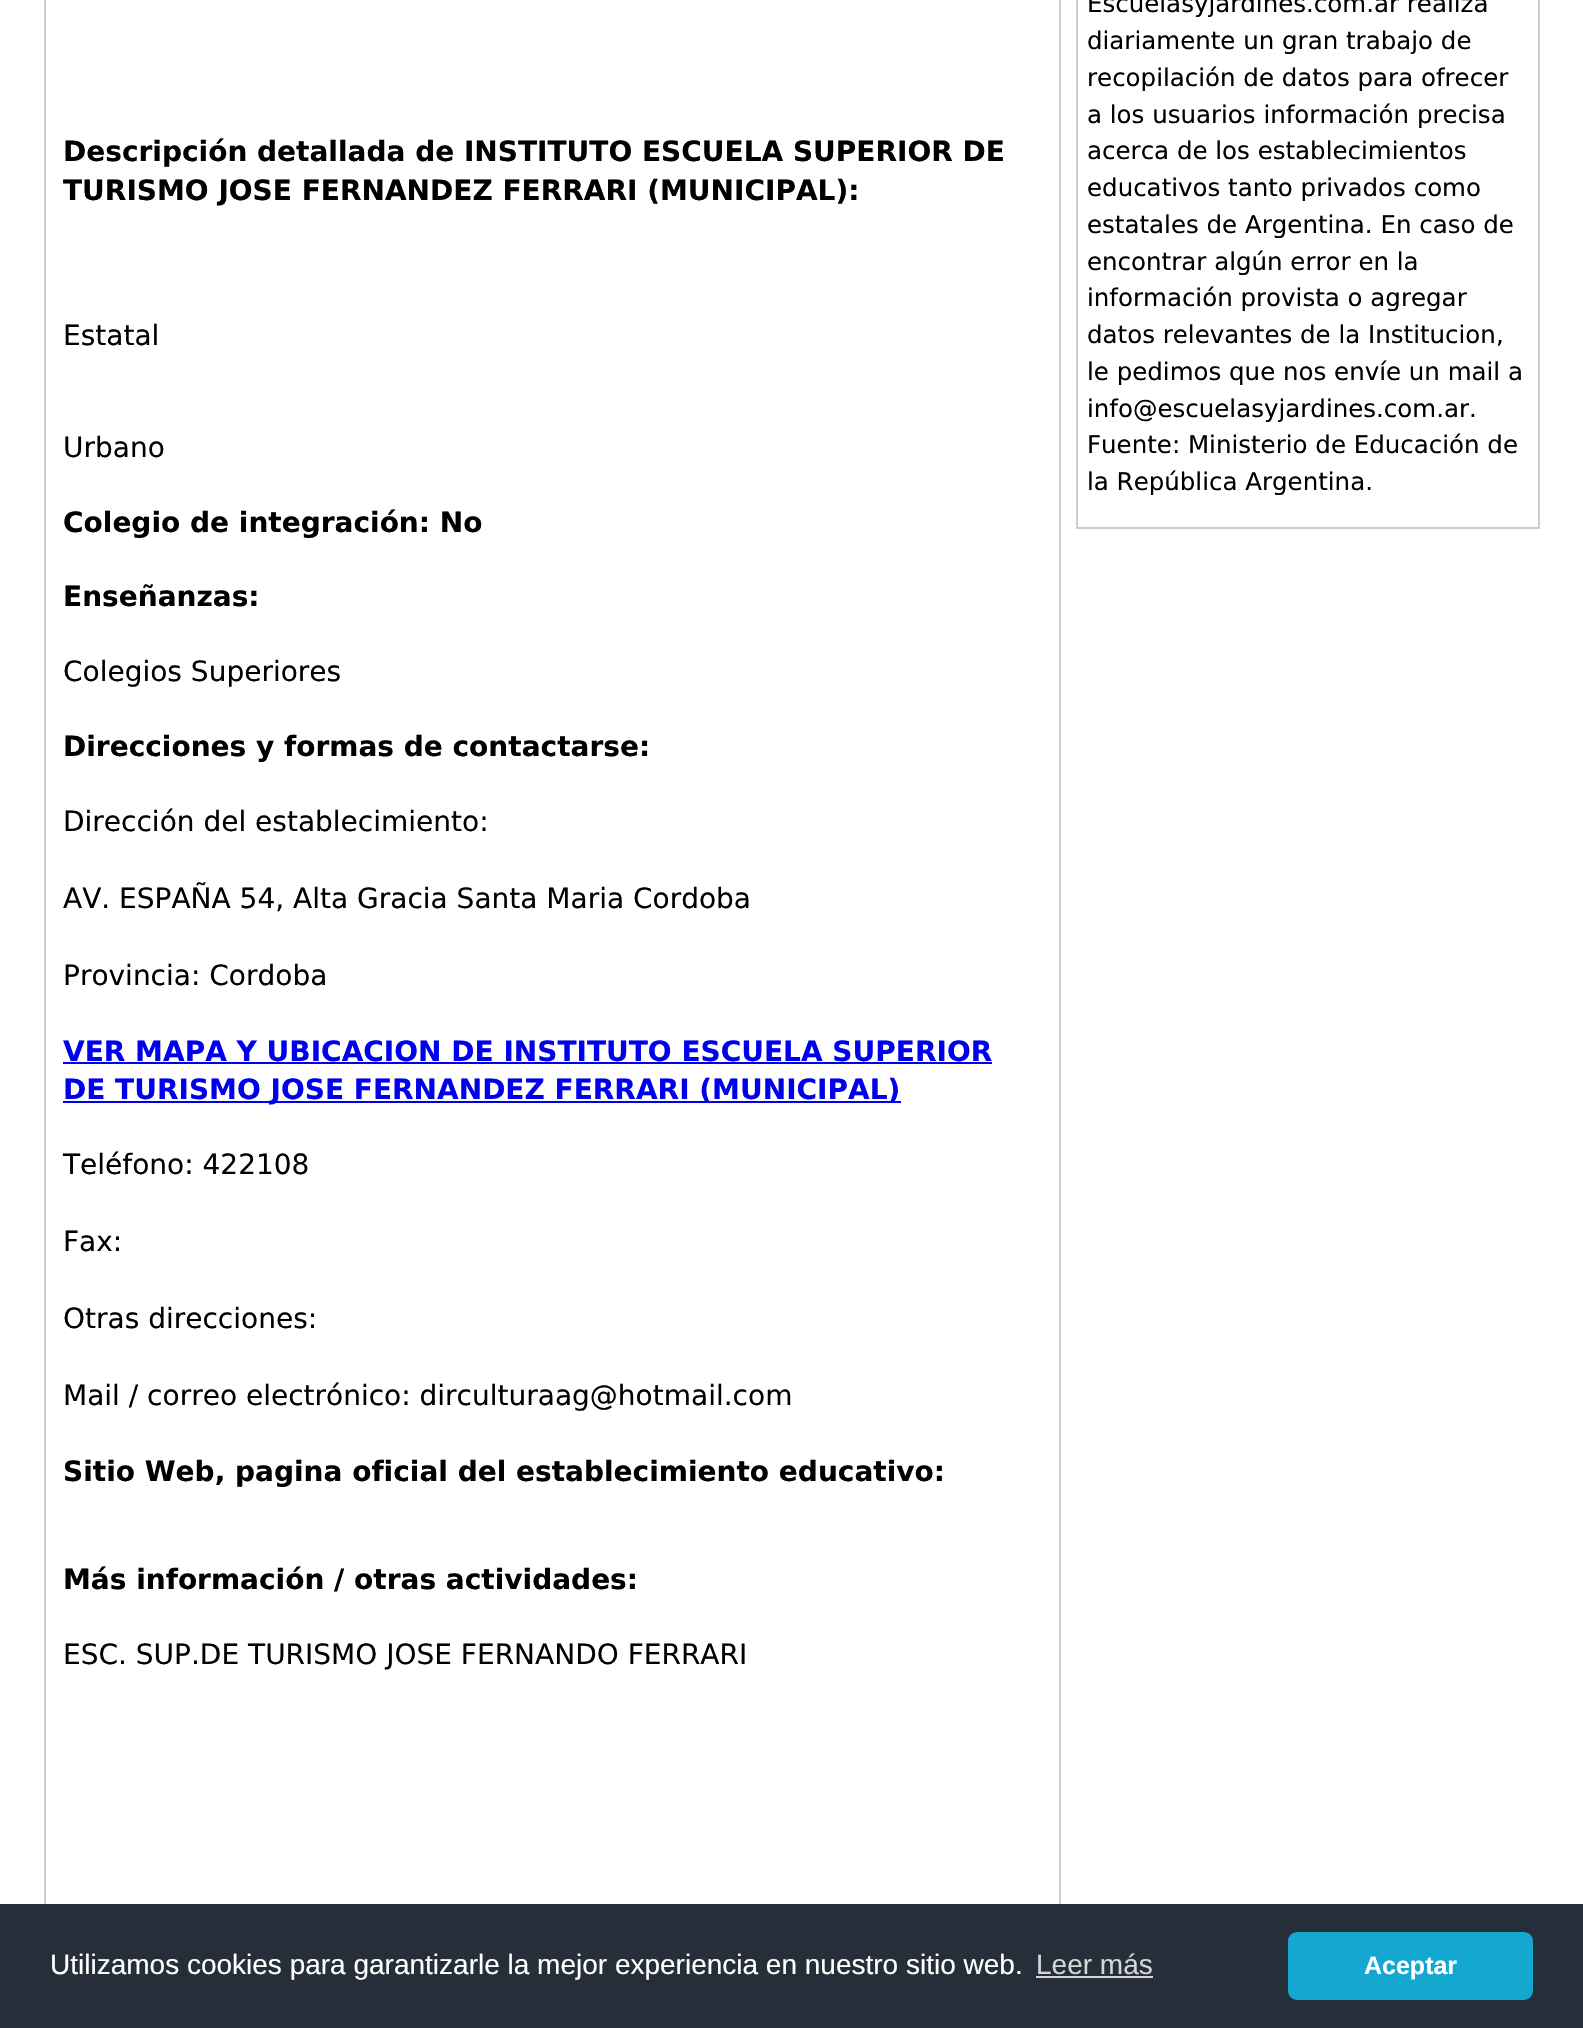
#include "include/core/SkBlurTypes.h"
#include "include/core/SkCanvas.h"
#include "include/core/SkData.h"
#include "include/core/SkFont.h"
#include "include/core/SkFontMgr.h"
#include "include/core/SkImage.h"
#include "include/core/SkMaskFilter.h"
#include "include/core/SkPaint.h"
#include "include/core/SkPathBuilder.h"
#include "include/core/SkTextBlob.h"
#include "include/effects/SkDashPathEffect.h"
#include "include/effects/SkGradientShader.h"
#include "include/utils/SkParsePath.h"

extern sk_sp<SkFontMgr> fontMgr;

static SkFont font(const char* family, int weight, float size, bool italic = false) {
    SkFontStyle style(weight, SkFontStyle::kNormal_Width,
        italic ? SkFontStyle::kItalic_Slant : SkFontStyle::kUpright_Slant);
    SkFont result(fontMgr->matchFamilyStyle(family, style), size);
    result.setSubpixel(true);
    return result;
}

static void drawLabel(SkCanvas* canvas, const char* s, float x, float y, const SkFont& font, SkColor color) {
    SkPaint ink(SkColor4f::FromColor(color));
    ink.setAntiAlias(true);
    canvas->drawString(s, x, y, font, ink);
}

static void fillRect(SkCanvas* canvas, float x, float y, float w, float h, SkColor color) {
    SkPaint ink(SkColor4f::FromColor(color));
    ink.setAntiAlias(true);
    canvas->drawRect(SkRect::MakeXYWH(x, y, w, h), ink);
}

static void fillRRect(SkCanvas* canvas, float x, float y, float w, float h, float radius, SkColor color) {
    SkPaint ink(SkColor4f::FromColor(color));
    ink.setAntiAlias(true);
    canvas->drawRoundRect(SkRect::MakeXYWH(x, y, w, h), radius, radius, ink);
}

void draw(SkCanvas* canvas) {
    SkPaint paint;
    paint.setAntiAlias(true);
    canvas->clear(0xFFFFFFFF);
    paint.setStroke(true);
    paint.setStrokeWidth(2);
    paint.setColor(0xFFCCCCCC);
    canvas->drawRect(SkRect::MakeXYWH(45, -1, 1015, 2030), paint);
    SkFont font1 = font("DejaVu Sans", 700, 28);
    drawLabel(canvas, "Descripción detallada de INSTITUTO ESCUELA SUPERIOR DE", 63, 161, font1, 0xFF000000);
    drawLabel(canvas, "TURISMO JOSE FERNANDEZ FERRARI (MUNICIPAL):", 63, 200, font1, 0xFF000000);
    SkFont font2 = font("DejaVu Sans", 400, 28);
    drawLabel(canvas, "Estatal", 63, 345, font2, 0xFF000000);
    drawLabel(canvas, "Urbano", 63, 457, font2, 0xFF000000);
    drawLabel(canvas, "Colegio de integración: No", 63, 532, font1, 0xFF000000);
    drawLabel(canvas, "Enseñanzas:", 63, 606, font1, 0xFF000000);
    drawLabel(canvas, "Colegios Superiores", 63, 681, font2, 0xFF000000);
    drawLabel(canvas, "Direcciones y formas de contactarse:", 63, 756, font1, 0xFF000000);
    drawLabel(canvas, "Dirección del establecimiento:", 63, 831, font2, 0xFF000000);
    drawLabel(canvas, "AV. ESPAÑA 54, Alta Gracia Santa Maria Cordoba", 63, 908, font2, 0xFF000000);
    drawLabel(canvas, "Provincia: Cordoba", 63, 985, font2, 0xFF000000);
    drawLabel(canvas, "VER MAPA Y UBICACION DE INSTITUTO ESCUELA SUPERIOR", 63, 1061, font1, 0xFF0000EE);
    fillRect(canvas, 63, 1062, 929, 2, 0xFF0000EE);
    fillRect(canvas, 63, 1101, 838, 2, 0xFF0000EE);
    drawLabel(canvas, "DE TURISMO JOSE FERNANDEZ FERRARI (MUNICIPAL)", 63, 1099, font1, 0xFF0000EE);
    drawLabel(canvas, "Teléfono: 422108", 63, 1174, font2, 0xFF000000);
    drawLabel(canvas, "Fax:", 63, 1251, font2, 0xFF000000);
    drawLabel(canvas, "Otras direcciones:", 63, 1328, font2, 0xFF000000);
    drawLabel(canvas, "Mail / correo electrónico: dirculturaag@hotmail.com", 63, 1405, font2, 0xFF000000);
    drawLabel(canvas, "Sitio Web, pagina oficial del establecimiento educativo:", 63, 1481, font1, 0xFF000000);
    drawLabel(canvas, "Más información / otras actividades:", 63, 1589, font1, 0xFF000000);
    drawLabel(canvas, "ESC. SUP.DE TURISMO JOSE FERNANDO FERRARI", 63, 1664, font2, 0xFF000000);
    canvas->drawRect(SkRect::MakeXYWH(1077, -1, 462, 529), paint);
    SkFont font3 = font("DejaVu Sans", 400, 24.5f);
    drawLabel(canvas, "Escuelasyjardines.com.ar realiza", 1087, 12, font3, 0xFF000000);
    drawLabel(canvas, "diariamente un gran trabajo de", 1087, 49, font3, 0xFF000000);
    drawLabel(canvas, "recopilación de datos para ofrecer", 1087, 86, font3, 0xFF000000);
    drawLabel(canvas, "a los usuarios información precisa", 1087, 123, font3, 0xFF000000);
    drawLabel(canvas, "acerca de los establecimientos", 1087, 159, font3, 0xFF000000);
    drawLabel(canvas, "educativos tanto privados como", 1087, 196, font3, 0xFF000000);
    drawLabel(canvas, "estatales de Argentina. En caso de", 1087, 233, font3, 0xFF000000);
    drawLabel(canvas, "encontrar algún error en la", 1087, 270, font3, 0xFF000000);
    drawLabel(canvas, "información provista o agregar", 1087, 306, font3, 0xFF000000);
    drawLabel(canvas, "datos relevantes de la Institucion,", 1087, 343, font3, 0xFF000000);
    drawLabel(canvas, "le pedimos que nos envíe un mail a", 1087, 380, font3, 0xFF000000);
    drawLabel(canvas, "info@escuelasyjardines.com.ar.", 1087, 417, font3, 0xFF000000);
    drawLabel(canvas, "Fuente: Ministerio de Educación de", 1087, 453, font3, 0xFF000000);
    drawLabel(canvas, "la República Argentina.", 1087, 490, font3, 0xFF000000);
    fillRect(canvas, 0, 1904, 1583, 124, 0xFF252E39);
    SkFont font4 = font("Liberation Sans", 400, 28);
    drawLabel(canvas, "Utilizamos cookies para garantizarle la mejor experiencia en nuestro sitio web.", 50, 1974, font4, 0xFFFFFFFF);
    drawLabel(canvas, "Leer más", 1036, 1974, font4, 0xFFD3D5D7);
    fillRect(canvas, 1036, 1976, 117, 2, 0xFFD3D5D7);
    fillRRect(canvas, 1288, 1932, 245, 68, 9, 0xFF14A7D0);
    SkFont font5 = font("Liberation Sans", 700, 25);
    drawLabel(canvas, "Aceptar", 1364, 1974, font5, 0xFFFFFFFF);
}
